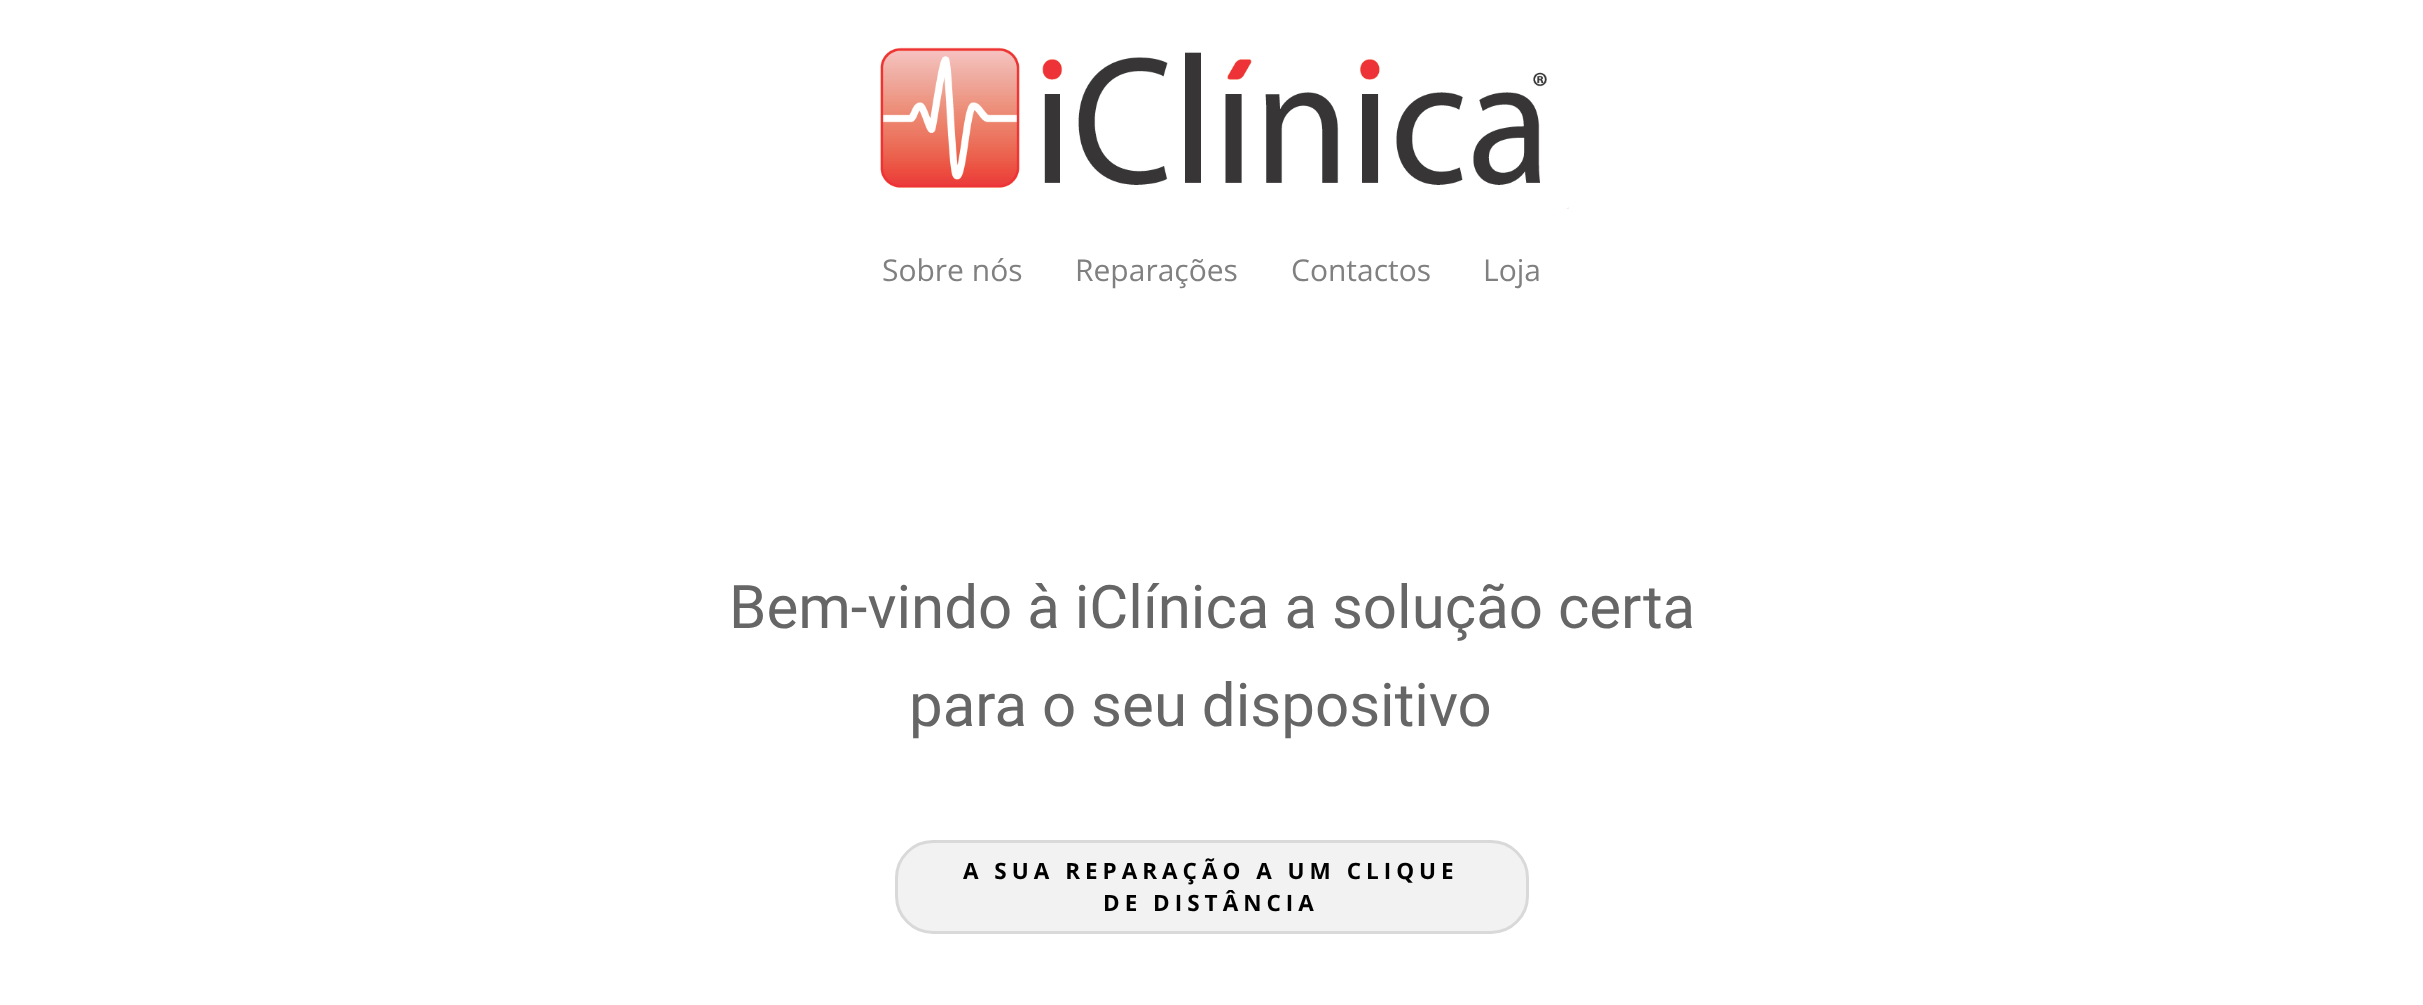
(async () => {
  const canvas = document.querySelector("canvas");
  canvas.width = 2423;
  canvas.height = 1005;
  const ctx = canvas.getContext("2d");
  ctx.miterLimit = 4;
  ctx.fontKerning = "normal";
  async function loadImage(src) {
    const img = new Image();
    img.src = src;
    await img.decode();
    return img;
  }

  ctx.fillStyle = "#ffffff";
  ctx.fillRect(0, 0, 2423, 1005);
  ctx.drawImage(await loadImage("img/1.png"), 880, 47, 689, 162);
  ctx.fillStyle = "#f2f2f2";
  ctx.beginPath();
  ctx.roundRect(896.5, 841.5, 631, 91, 36.5);
  ctx.fill();
  ctx.strokeStyle = "#d9d9d9";
  ctx.lineWidth = 3;
  ctx.stroke();
  ctx.font = "30px Open Sans";
  ctx.fillStyle = "#808080";
  for (const [text, x, y] of [
    ["Sobre nós", 882, 281],
    ["Reparações", 1075, 281],
    ["Contactos", 1291, 281],
    ["Loja", 1483, 281],
  ]) {
    ctx.fillText(text, x, y);
  }
  ctx.font = "60px Roboto";
  ctx.fillStyle = "#666666";
  ctx.fillText("Bem-vindo à iClínica a solução certa", 729, 628);
  ctx.fillText("para o seu dispositivo", 909, 726);
  ctx.letterSpacing = "5px";
  ctx.font = "bold 22.5px Open Sans";
  ctx.fillStyle = "#000000";
  ctx.fillText("A SUA REPARAÇÃO A UM CLIQUE", 963, 879);
  ctx.fillText("DE DISTÂNCIA", 1103, 911);
})();
